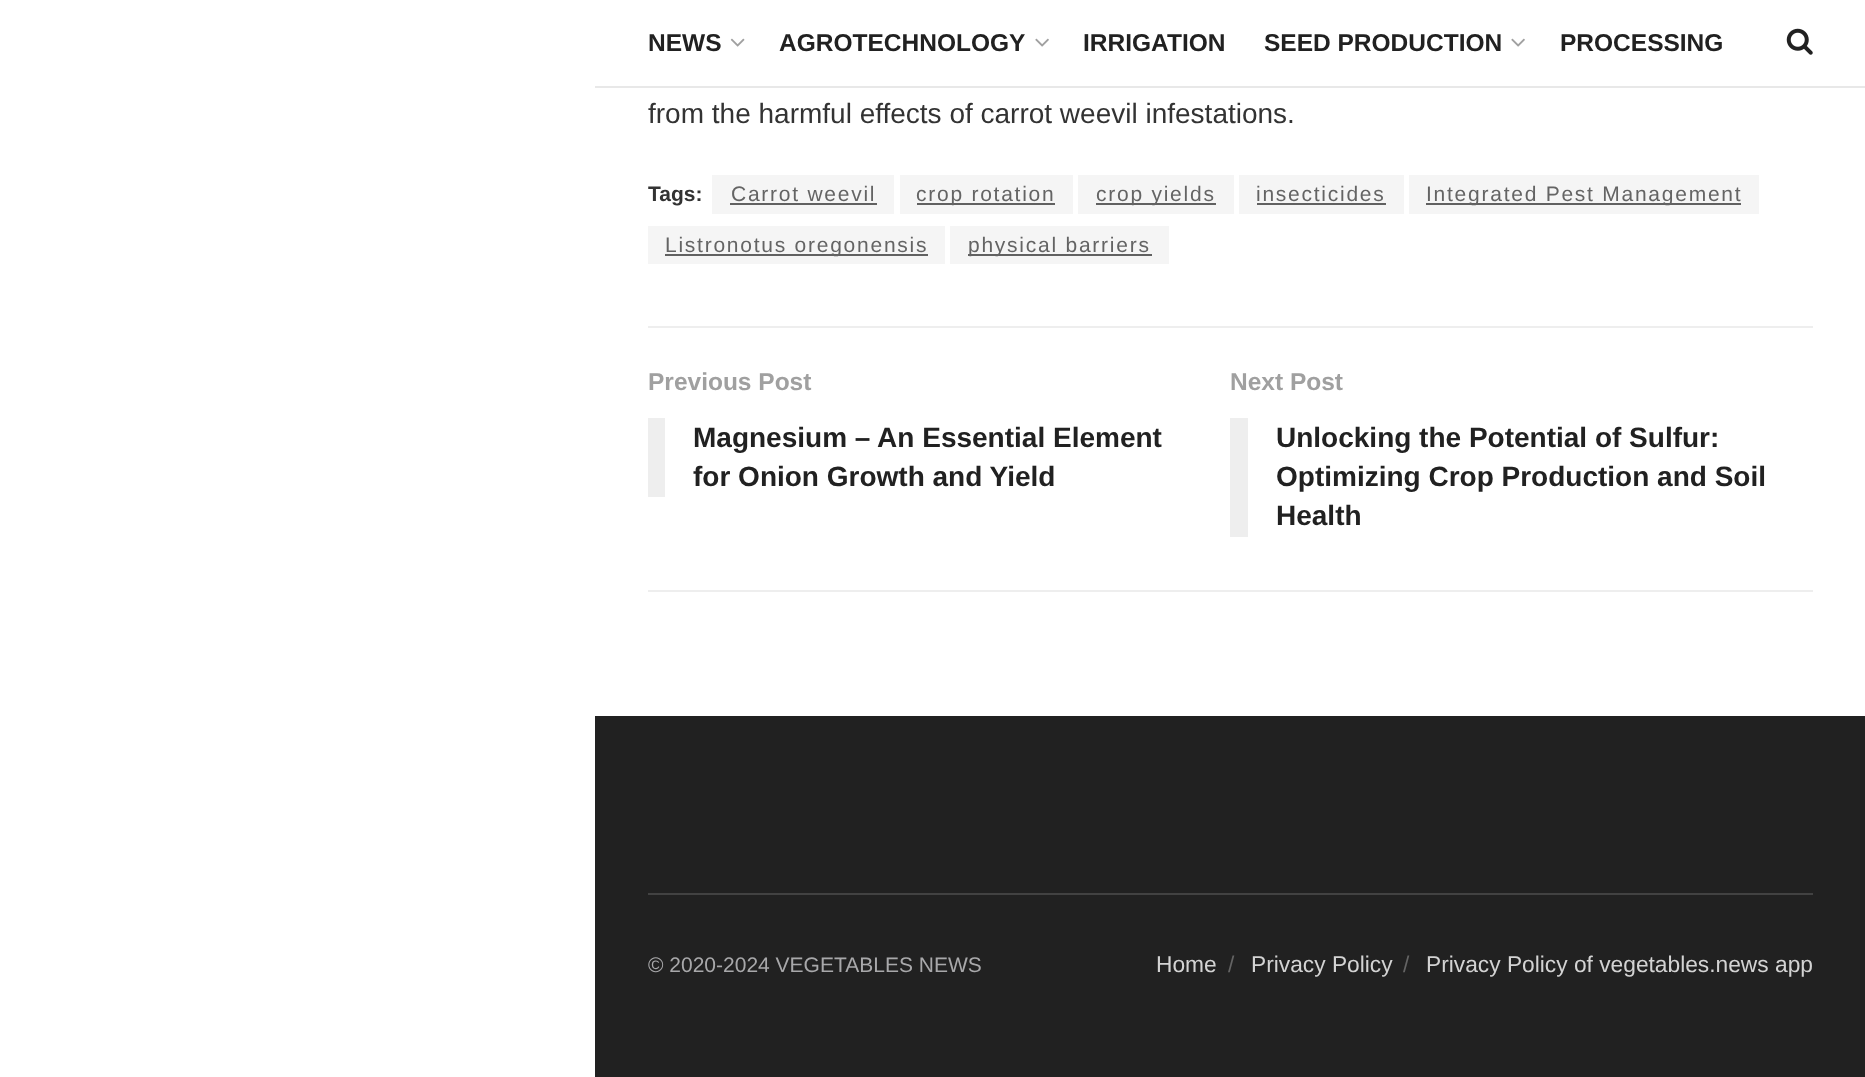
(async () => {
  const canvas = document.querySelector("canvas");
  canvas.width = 1865;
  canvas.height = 1077;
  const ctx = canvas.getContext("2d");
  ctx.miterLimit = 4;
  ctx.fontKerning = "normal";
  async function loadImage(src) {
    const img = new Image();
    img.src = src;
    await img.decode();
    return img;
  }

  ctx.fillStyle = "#ffffff";
  ctx.fillRect(0, 0, 1865, 1077);
  ctx.fillStyle = "#e8e8e8";
  ctx.fillRect(595, 86, 1270, 2);
  ctx.drawImage(await loadImage("img/1.png"), 730, 38, 15, 9);
  ctx.drawImage(await loadImage("img/2.png"), 1035, 38, 14, 9);
  ctx.drawImage(await loadImage("img/2.png"), 1511, 38, 14, 9);
  ctx.drawImage(await loadImage("img/3.png"), 1786, 28, 27, 27);
  for (const [x, y, w, h, color] of [
    [712, 175, 182, 39, "#f5f5f5"],
    [730, 203, 147, 2, "#616161"],
    [900, 175, 173, 39, "#f5f5f5"],
    [917, 203, 138, 2, "#616161"],
    [1078, 175, 156, 39, "#f5f5f5"],
    [1096, 203, 120, 2, "#616161"],
    [1239, 175, 165, 39, "#f5f5f5"],
    [1257, 203, 129, 2, "#616161"],
    [1409, 175, 350, 39, "#f5f5f5"],
    [1426, 203, 315, 2, "#616161"],
    [648, 226, 297, 38, "#f5f5f5"],
    [665, 254, 263, 2, "#616161"],
    [950, 226, 219, 38, "#f5f5f5"],
    [968, 254, 184, 2, "#616161"],
    [648, 326, 1165, 2, "#eeeeee"],
    [648, 590, 1165, 2, "#eeeeee"],
    [648, 418, 17, 79, "#eeeeee"],
    [1230, 418, 18, 119, "#eeeeee"],
    [595, 716, 1270, 361, "#212121"],
    [648, 893, 1165, 2, "#424242"],
  ]) {
    ctx.fillStyle = color;
    ctx.fillRect(x, y, w, h);
  }
  ctx.font = "bold 24.5px Liberation Sans";
  ctx.fillStyle = "#212121";
  for (const [text, x, y] of [
    ["NEWS", 648, 51],
    ["AGROTECHNOLOGY", 779, 51],
    ["IRRIGATION", 1083, 51],
    ["SEED PRODUCTION", 1264, 51],
    ["PROCESSING", 1560, 51],
  ]) {
    ctx.fillText(text, x, y);
  }
  ctx.font = "28px Liberation Sans";
  ctx.fillStyle = "#333333";
  ctx.fillText("from the harmful effects of carrot weevil infestations.", 648, 123);
  ctx.font = "bold 21px Liberation Sans";
  ctx.fillText("Tags:", 648, 201);
  ctx.letterSpacing = "1.75px";
  ctx.font = "21px Liberation Sans";
  ctx.fillStyle = "#646464";
  for (const [text, x, y] of [
    ["Carrot weevil", 731, 201],
    ["crop rotation", 916, 201],
    ["crop yields", 1096, 201],
    ["insecticides", 1256, 201],
    ["Integrated Pest Management", 1426, 201],
    ["Listronotus oregonensis", 665, 252],
    ["physical barriers", 968, 252],
  ]) {
    ctx.fillText(text, x, y);
  }
  ctx.letterSpacing = "0px";
  ctx.font = "bold 24.5px Liberation Sans";
  ctx.fillStyle = "#a0a0a0";
  ctx.fillText("Previous Post", 648, 390);
  ctx.font = "bold 28px Liberation Sans";
  ctx.fillStyle = "#212121";
  ctx.fillText("Magnesium – An Essential Element", 693, 447);
  ctx.fillText("for Onion Growth and Yield", 693, 486);
  ctx.font = "bold 24.5px Liberation Sans";
  ctx.fillStyle = "#a0a0a0";
  ctx.fillText("Next Post", 1230, 390);
  ctx.font = "bold 28px Liberation Sans";
  ctx.fillStyle = "#212121";
  for (const [text, x, y] of [
    ["Unlocking the Potential of Sulfur:", 1276, 447],
    ["Optimizing Crop Production and Soil", 1276, 486],
    ["Health", 1276, 525],
  ]) {
    ctx.fillText(text, x, y);
  }
  ctx.font = "21px Liberation Sans";
  ctx.fillStyle = "#a8a8aa";
  ctx.fillText("© 2020-2024 VEGETABLES NEWS", 648, 972);
  ctx.font = "22.75px Liberation Sans";
  ctx.fillStyle = "#d3d3d3";
  ctx.fillText("Home", 1156, 972);
  ctx.fillStyle = "#646464";
  ctx.fillText("/", 1228, 972);
  ctx.fillStyle = "#d3d3d3";
  ctx.fillText("Privacy Policy", 1251, 972);
  ctx.fillStyle = "#646464";
  ctx.fillText("/", 1403, 972);
  ctx.fillStyle = "#d3d3d3";
  ctx.fillText("Privacy Policy of vegetables.news app", 1426, 972);
})();
